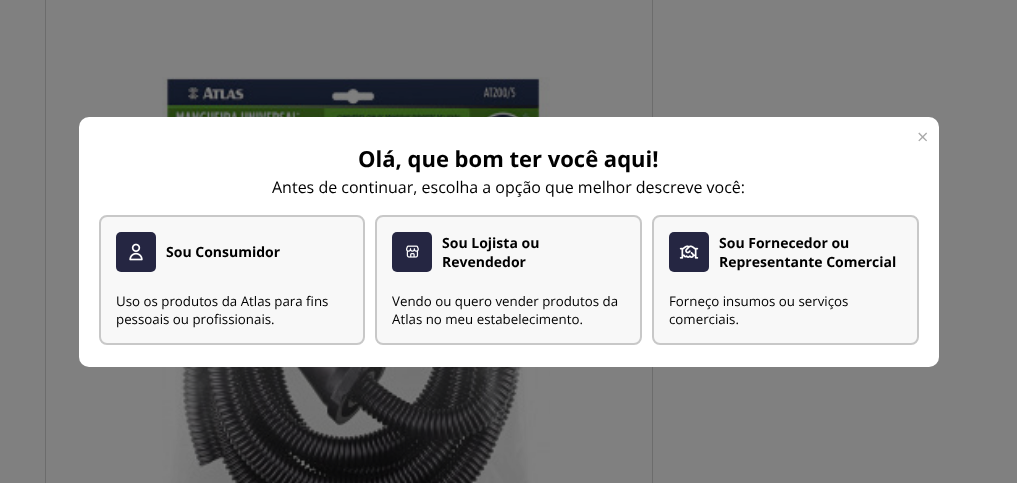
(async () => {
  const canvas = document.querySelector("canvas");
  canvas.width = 1017;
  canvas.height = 483;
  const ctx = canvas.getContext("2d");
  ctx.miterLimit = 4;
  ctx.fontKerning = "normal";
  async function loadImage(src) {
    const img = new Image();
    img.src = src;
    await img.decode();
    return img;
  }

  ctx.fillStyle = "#808080";
  ctx.fillRect(0, 0, 1017, 483);
  ctx.strokeStyle = "#6c6c6c";
  ctx.strokeRect(45.5, -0.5, 607, 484);
  ctx.drawImage(await loadImage("img/1.png"), 162, 77, 388, 406);
  ctx.fillStyle = "#ffffff";
  ctx.beginPath();
  ctx.roundRect(79, 117, 860, 250, 10);
  ctx.fill();
  ctx.fillStyle = "#f8f8f8";
  ctx.beginPath();
  ctx.roundRect(100, 216, 264, 128, 7);
  ctx.fill();
  ctx.strokeStyle = "#c8c8c8";
  ctx.lineWidth = 2;
  ctx.stroke();
  ctx.fillStyle = "#252642";
  ctx.beginPath();
  ctx.roundRect(116, 232, 40, 40, 5);
  ctx.fill();
  ctx.drawImage(await loadImage("img/2.png"), 129, 243, 14, 18);
  ctx.fillStyle = "#f8f8f8";
  ctx.beginPath();
  ctx.roundRect(376, 216, 265, 128, 7);
  ctx.fill();
  ctx.stroke();
  ctx.fillStyle = "#252642";
  ctx.beginPath();
  ctx.roundRect(392, 232, 40, 40, 5);
  ctx.fill();
  ctx.drawImage(await loadImage("img/3.png"), 406, 245, 13, 13);
  ctx.fillStyle = "#f8f8f8";
  ctx.beginPath();
  ctx.roundRect(653, 216, 265, 128, 7);
  ctx.fill();
  ctx.stroke();
  ctx.fillStyle = "#252642";
  ctx.beginPath();
  ctx.roundRect(669, 232, 40, 40, 5);
  ctx.fill();
  ctx.drawImage(await loadImage("img/4.png"), 679, 245, 20, 14);
  ctx.font = "20px Open Sans";
  ctx.fillStyle = "#aaaaaa";
  ctx.fillText("×", 917, 144);
  ctx.font = "bold 22px Open Sans";
  ctx.fillStyle = "#000000";
  ctx.fillText("Olá, que bom ter você aqui!", 358, 167);
  ctx.font = "16px Open Sans";
  ctx.fillText("Antes de continuar, escolha a opção que melhor descreve você:", 272, 193);
  ctx.font = "bold 14px Open Sans";
  ctx.fillText("Sou Consumidor", 166, 257);
  ctx.font = "13.3px Open Sans";
  ctx.fillText("Uso os produtos da Atlas para fins", 116, 306);
  ctx.fillText("pessoais ou profissionais.", 116, 324);
  ctx.font = "bold 14px Open Sans";
  ctx.fillText("Sou Lojista ou", 442, 248);
  ctx.fillText("Revendedor", 442, 267);
  ctx.font = "13.3px Open Sans";
  ctx.fillText("Vendo ou quero vender produtos da", 392, 306);
  ctx.fillText("Atlas no meu estabelecimento.", 392, 324);
  ctx.font = "bold 14px Open Sans";
  ctx.fillText("Sou Fornecedor ou", 719, 248);
  ctx.fillText("Representante Comercial", 719, 267);
  ctx.font = "13.3px Open Sans";
  ctx.fillText("Forneço insumos ou serviços", 669, 306);
  ctx.fillText("comerciais.", 669, 324);
})();
